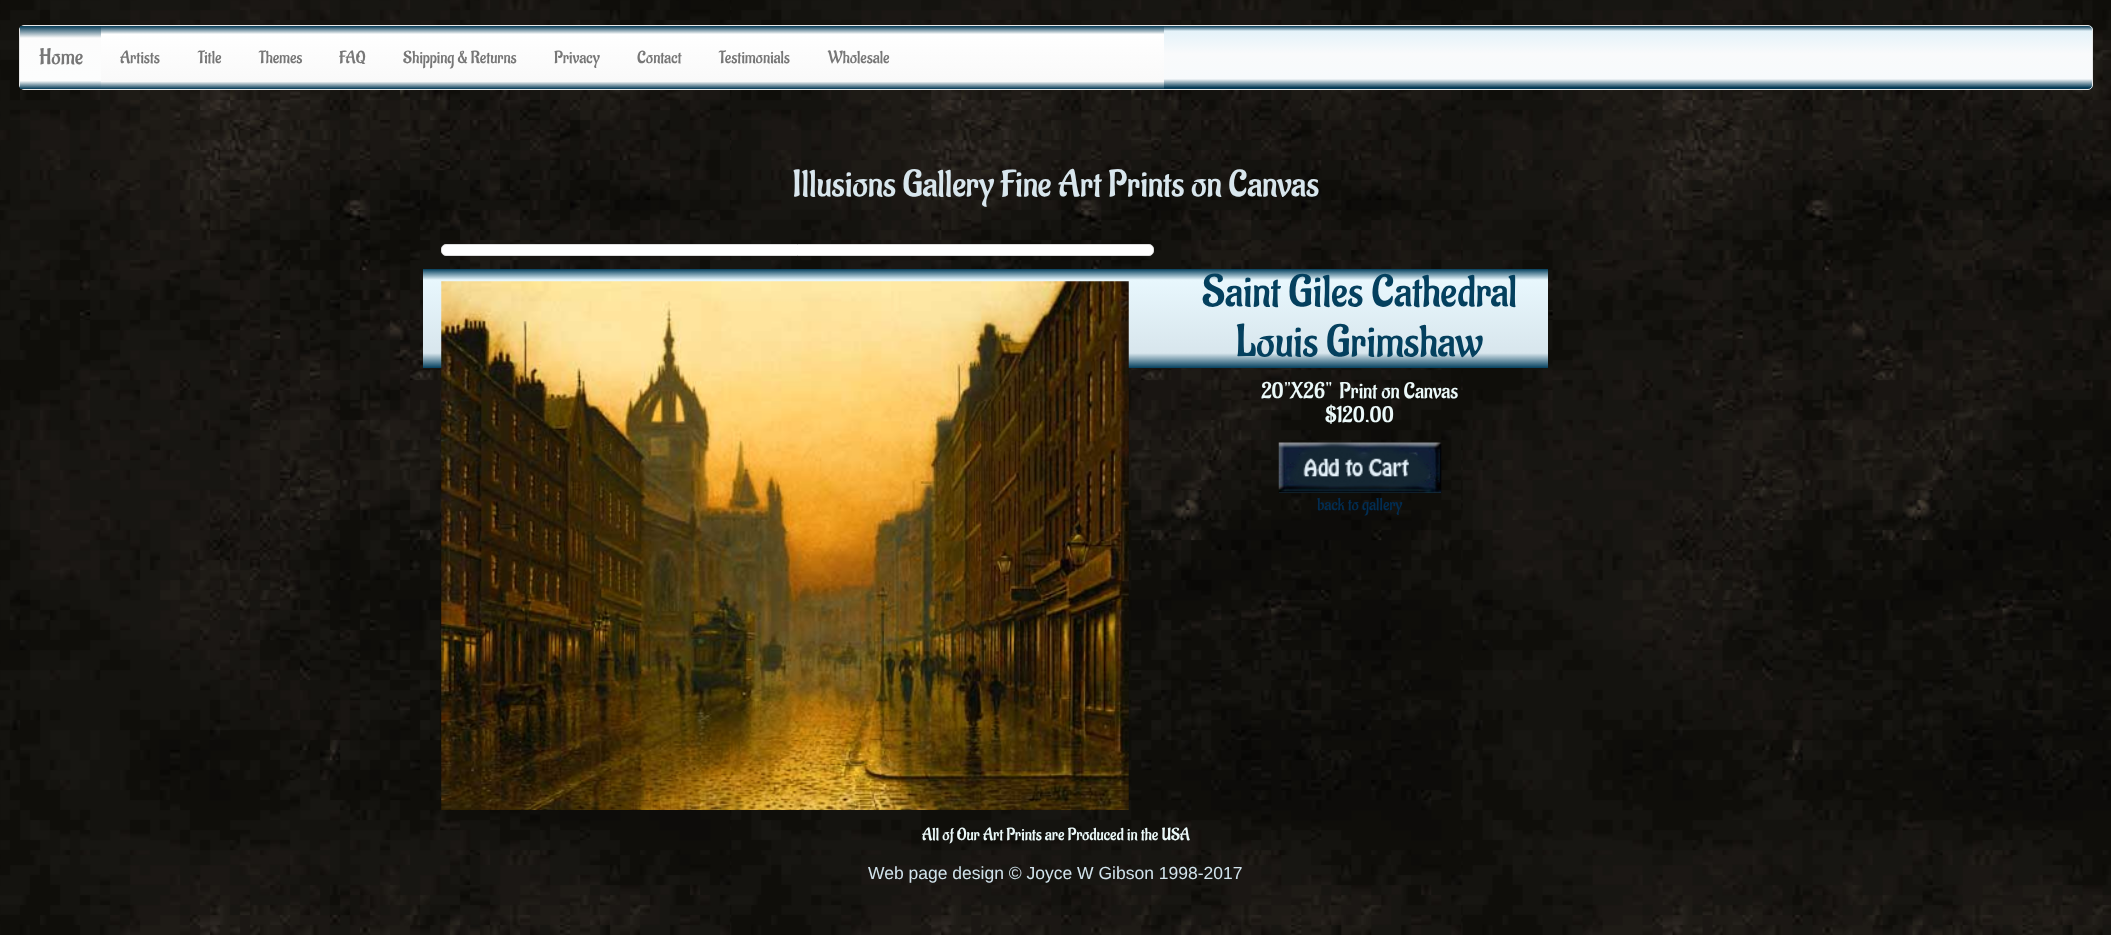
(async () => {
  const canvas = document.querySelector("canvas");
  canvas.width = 2111;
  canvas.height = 935;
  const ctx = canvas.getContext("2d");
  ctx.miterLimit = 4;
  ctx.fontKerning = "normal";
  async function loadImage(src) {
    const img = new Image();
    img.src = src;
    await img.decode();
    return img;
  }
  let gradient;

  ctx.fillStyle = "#ffffff";
  ctx.fillRect(0, 0, 2111, 935);
  ctx.drawImage(await loadImage("img/1.png"), 0, 0, 2111, 935);
  ctx.save();
  ctx.beginPath();
  ctx.roundRect(19, 25, 2074, 65, 5);
  ctx.clip();
  gradient = ctx.createLinearGradient(1056, 26, 1056, 89);
  gradient.addColorStop(0, "#023955");
  gradient.addColorStop(0.08, "#e4f2f9");
  gradient.addColorStop(0.44, "#f9fafb");
  gradient.addColorStop(0.84, "#f7fafc");
  gradient.addColorStop(0.98, "#023955");
  ctx.fillStyle = gradient;
  ctx.fillRect(19, 26, 2074, 63);
  ctx.restore();
  ctx.beginPath();
  ctx.roundRect(19.5, 25.5, 2073, 64, 4.5);
  ctx.strokeStyle = "#e7e7e7";
  ctx.stroke();
  gradient = ctx.createLinearGradient(61, 26, 61, 89);
  gradient.addColorStop(0, "#023955");
  gradient.addColorStop(0.19, "#fcfcfc");
  gradient.addColorStop(0.87, "#fcfdfd");
  gradient.addColorStop(1, "#023955");
  ctx.fillStyle = gradient;
  ctx.fillRect(20, 26, 81, 63);
  gradient = ctx.createLinearGradient(601, 26, 601, 89);
  gradient.addColorStop(0, "#023955");
  gradient.addColorStop(0.13, "#ffffff");
  gradient.addColorStop(0.88, "#f9f9f9");
  gradient.addColorStop(1, "#023955");
  ctx.fillStyle = gradient;
  ctx.fillRect(101, 26, 1063, 63);
  ctx.fillStyle = "#ffffff";
  ctx.beginPath();
  ctx.roundRect(441.5, 244.5, 712, 11, 4.5);
  ctx.fill();
  ctx.strokeStyle = "#dddddd";
  ctx.stroke();
  gradient = ctx.createLinearGradient(985, 269, 985, 368);
  gradient.addColorStop(0, "#04405e");
  gradient.addColorStop(0.11, "#e8f7fd");
  gradient.addColorStop(0.85, "#d8e6ed");
  gradient.addColorStop(1, "#04405e");
  ctx.fillStyle = gradient;
  ctx.fillRect(423, 269, 1125, 99);
  ctx.drawImage(await loadImage("img/2.png"), 441, 281, 688, 529);
  ctx.fillStyle = "#1f3d4b";
  ctx.fillRect(1279, 492, 162, 1);
  ctx.drawImage(await loadImage("img/3.png"), 1278, 442, 164, 51);
  ctx.font = "22.5px Aladin";
  ctx.fillStyle = "#777777";
  ctx.fillText("Home", 39, 64);
  ctx.font = "17.5px Aladin";
  for (const [text, x, y] of [
    ["Artists", 120, 63],
    ["Title", 198, 63],
    ["Themes", 259, 63],
    ["FAQ", 339, 63],
    ["Shipping & Returns", 403, 63],
    ["Privacy", 554, 63],
    ["Contact", 637, 63],
    ["Testimonials", 719, 63],
    ["Wholesale", 828, 63],
  ]) {
    ctx.fillText(text, x, y);
  }
  ctx.font = "37.5px Aladin";
  ctx.fillStyle = "#d8e6ed";
  ctx.fillText("Illusions Gallery Fine Art Prints on Canvas", 792, 196);
  ctx.font = "45px Aladin";
  ctx.fillStyle = "#04405e";
  ctx.fillText("Saint Giles Cathedral", 1202, 306);
  ctx.fillText("Louis Grimshaw", 1236, 356);
  ctx.font = "22.5px Aladin";
  ctx.fillStyle = "#ebf9f9";
  ctx.fillText("20\"X26\"  Print on Canvas", 1261, 398);
  ctx.fillText("$120.00", 1325, 422);
  ctx.font = "17.5px Aladin";
  ctx.fillStyle = "#022d52";
  ctx.fillText("back to gallery", 1317, 510);
  ctx.fillStyle = "#ebf9f9";
  ctx.fillText("All of Our Art Prints are Produced in the USA", 922, 840);
  ctx.font = "17.5px Liberation Sans";
  ctx.fillStyle = "#d1e3ec";
  ctx.fillText("Web page design © Joyce W Gibson 1998-2017", 868, 879);
})();
